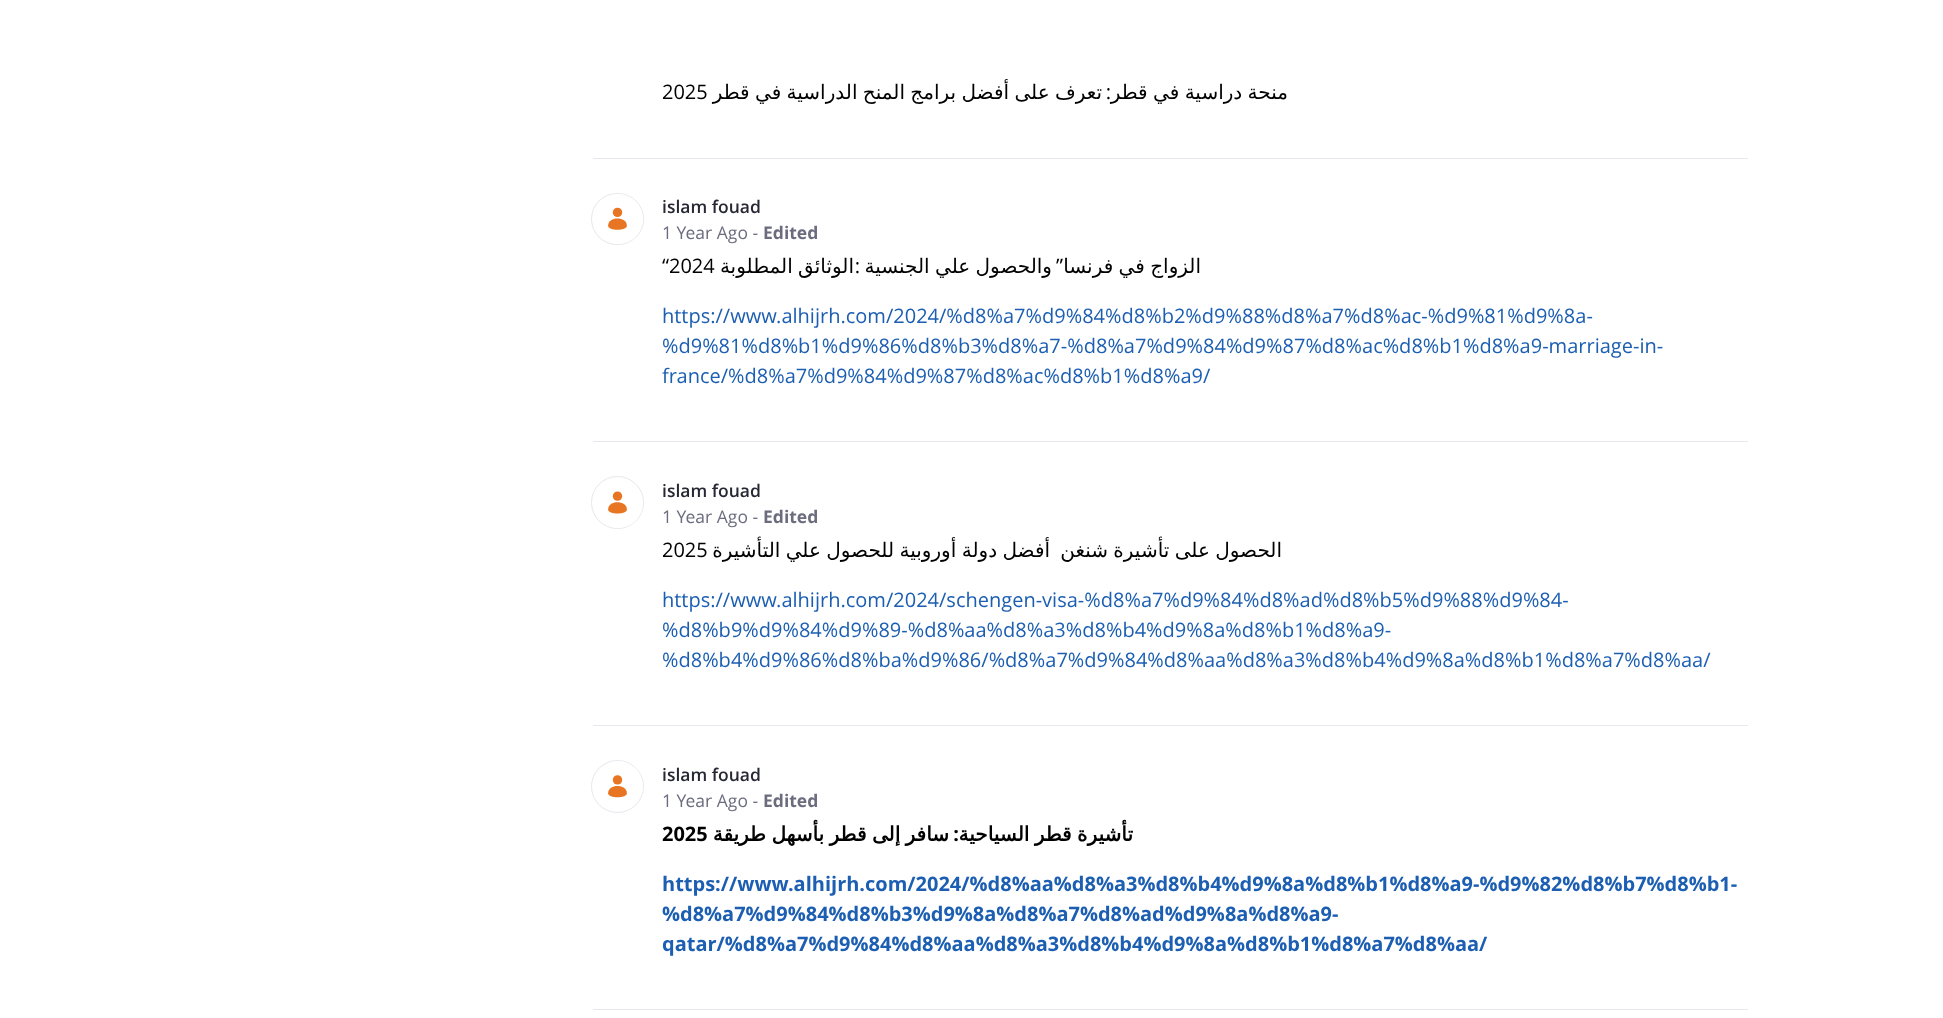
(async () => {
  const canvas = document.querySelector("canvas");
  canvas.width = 1943;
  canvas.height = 1018;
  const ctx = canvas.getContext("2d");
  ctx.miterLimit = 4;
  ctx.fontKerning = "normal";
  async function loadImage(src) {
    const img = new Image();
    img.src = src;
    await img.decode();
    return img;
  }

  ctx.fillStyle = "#ffffff";
  ctx.fillRect(0, 0, 1943, 1018);
  ctx.fillStyle = "#e7e7ed";
  ctx.fillRect(593, 158, 1155, 1);
  ctx.fillRect(593, 441, 1155, 1);
  ctx.beginPath();
  ctx.roundRect(591.5, 193.5, 52, 51, 25.5);
  ctx.strokeStyle = "#e7e7ed";
  ctx.stroke();
  ctx.fillStyle = "#ffffff";
  ctx.beginPath();
  ctx.arc(618, 219, 25, 0, Math.PI * 2);
  ctx.fill();
  ctx.drawImage(await loadImage("img/1.png"), 608, 207, 19, 23);
  ctx.fillStyle = "#e7e7ed";
  ctx.fillRect(593, 725, 1155, 1);
  ctx.beginPath();
  ctx.arc(617.5, 502.5, 26, 0, Math.PI * 2);
  ctx.stroke();
  ctx.fillStyle = "#ffffff";
  ctx.beginPath();
  ctx.arc(618, 503, 25, 0, Math.PI * 2);
  ctx.fill();
  ctx.drawImage(await loadImage("img/2.png"), 608, 491, 19, 23);
  ctx.fillStyle = "#e7e7ed";
  ctx.fillRect(593, 1009, 1155, 1);
  ctx.beginPath();
  ctx.arc(617.5, 786.5, 26, 0, Math.PI * 2);
  ctx.stroke();
  ctx.fillStyle = "#ffffff";
  ctx.beginPath();
  ctx.arc(618, 786, 25, 0, Math.PI * 2);
  ctx.fill();
  ctx.drawImage(await loadImage("img/3.png"), 608, 775, 19, 23);
  ctx.font = "20px Open Sans";
  ctx.fillStyle = "#000000";
  ctx.fillText("2025", 662, 99);
  ctx.wordSpacing = "-1px";
  ctx.direction = "rtl";
  ctx.font = "20px DejaVu Sans";
  ctx.fillText("تعرف على أفضل برامج المنح الدراسية في قطر", 1102, 99);
  ctx.fillText("منحة دراسية في قطر", 1288, 99);
  ctx.wordSpacing = "0px";
  ctx.font = "20px Open Sans";
  ctx.fillText(":", 1111, 99);
  ctx.direction = "ltr";
  ctx.font = "600 17.5px Open Sans";
  ctx.fillStyle = "#272833";
  ctx.fillText("islam fouad", 662, 213);
  ctx.font = "17.5px Open Sans";
  ctx.fillStyle = "#6b6c7e";
  ctx.fillText("1 Year Ago -", 662, 239);
  ctx.font = "bold 17.5px Open Sans";
  ctx.fillText("Edited", 763, 239);
  ctx.font = "20px Open Sans";
  ctx.fillStyle = "#000000";
  ctx.fillText("“2024", 662, 273);
  ctx.wordSpacing = "-1px";
  ctx.direction = "rtl";
  ctx.font = "20px DejaVu Sans";
  ctx.fillText("الوثائق المطلوبة", 854, 273);
  ctx.fillText("والحصول علي الجنسية", 1052, 273);
  ctx.wordSpacing = "0px";
  ctx.font = "20px Open Sans";
  ctx.fillText("”", 1063, 273);
  ctx.wordSpacing = "-1px";
  ctx.font = "20px DejaVu Sans";
  ctx.fillText("الزواج في فرنسا", 1201, 273);
  ctx.wordSpacing = "0px";
  ctx.font = "20px Open Sans";
  ctx.fillText(":", 860, 273);
  ctx.direction = "ltr";
  ctx.fillStyle = "#1b5eb2";
  for (const [text, x, y] of [
    ["https://www.alhijrh.com/2024/%d8%a7%d9%84%d8%b2%d9%88%d8%a7%d8%ac-%d9%81%d9%8a-", 662, 323],
    ["%d9%81%d8%b1%d9%86%d8%b3%d8%a7-%d8%a7%d9%84%d9%87%d8%ac%d8%b1%d8%a9-marriage-in-", 662, 353],
    ["france/%d8%a7%d9%84%d9%87%d8%ac%d8%b1%d8%a9/", 662, 383],
  ]) {
    ctx.fillText(text, x, y);
  }
  ctx.font = "600 17.5px Open Sans";
  ctx.fillStyle = "#272833";
  ctx.fillText("islam fouad", 662, 497);
  ctx.font = "17.5px Open Sans";
  ctx.fillStyle = "#6b6c7e";
  ctx.fillText("1 Year Ago -", 662, 523);
  ctx.font = "bold 17.5px Open Sans";
  ctx.fillText("Edited", 763, 523);
  ctx.font = "20px Open Sans";
  ctx.fillStyle = "#000000";
  ctx.fillText("2025", 662, 557);
  ctx.wordSpacing = "-1px";
  ctx.direction = "rtl";
  ctx.font = "20px DejaVu Sans";
  ctx.fillText("أفضل دولة أوروبية للحصول علي التأشيرة", 1050, 557);
  ctx.fillText("الحصول على تأشيرة شنغن", 1282, 557);
  ctx.wordSpacing = "0px";
  ctx.direction = "ltr";
  ctx.font = "20px Open Sans";
  ctx.fillStyle = "#1b5eb2";
  for (const [text, x, y] of [
    ["https://www.alhijrh.com/2024/schengen-visa-%d8%a7%d9%84%d8%ad%d8%b5%d9%88%d9%84-", 662, 607],
    ["%d8%b9%d9%84%d9%89-%d8%aa%d8%a3%d8%b4%d9%8a%d8%b1%d8%a9-", 662, 637],
    ["%d8%b4%d9%86%d8%ba%d9%86/%d8%a7%d9%84%d8%aa%d8%a3%d8%b4%d9%8a%d8%b1%d8%a7%d8%aa/", 662, 667],
  ]) {
    ctx.fillText(text, x, y);
  }
  ctx.font = "600 17.5px Open Sans";
  ctx.fillStyle = "#272833";
  ctx.fillText("islam fouad", 662, 781);
  ctx.font = "17.5px Open Sans";
  ctx.fillStyle = "#6b6c7e";
  ctx.fillText("1 Year Ago -", 662, 807);
  ctx.font = "bold 17.5px Open Sans";
  ctx.fillText("Edited", 763, 807);
  ctx.font = "bold 20px Open Sans";
  ctx.fillStyle = "#000000";
  ctx.fillText("2025", 662, 841);
  ctx.wordSpacing = "-1px";
  ctx.direction = "rtl";
  ctx.font = "bold 20px DejaVu Sans";
  ctx.fillText("سافر إلى قطر بأسهل طريقة", 949, 841);
  ctx.wordSpacing = "0px";
  ctx.font = "bold 20px Open Sans";
  ctx.fillText(":", 959, 841);
  ctx.wordSpacing = "-1px";
  ctx.font = "bold 20px DejaVu Sans";
  ctx.fillText("تأشيرة قطر السياحية", 1133, 841);
  ctx.wordSpacing = "0px";
  ctx.direction = "ltr";
  ctx.font = "bold 20px Open Sans";
  ctx.fillStyle = "#1b5eb2";
  for (const [text, x, y] of [
    ["https://www.alhijrh.com/2024/%d8%aa%d8%a3%d8%b4%d9%8a%d8%b1%d8%a9-%d9%82%d8%b7%d8%b1-", 662, 891],
    ["%d8%a7%d9%84%d8%b3%d9%8a%d8%a7%d8%ad%d9%8a%d8%a9-", 662, 921],
    ["qatar/%d8%a7%d9%84%d8%aa%d8%a3%d8%b4%d9%8a%d8%b1%d8%a7%d8%aa/", 662, 951],
  ]) {
    ctx.fillText(text, x, y);
  }
})();
